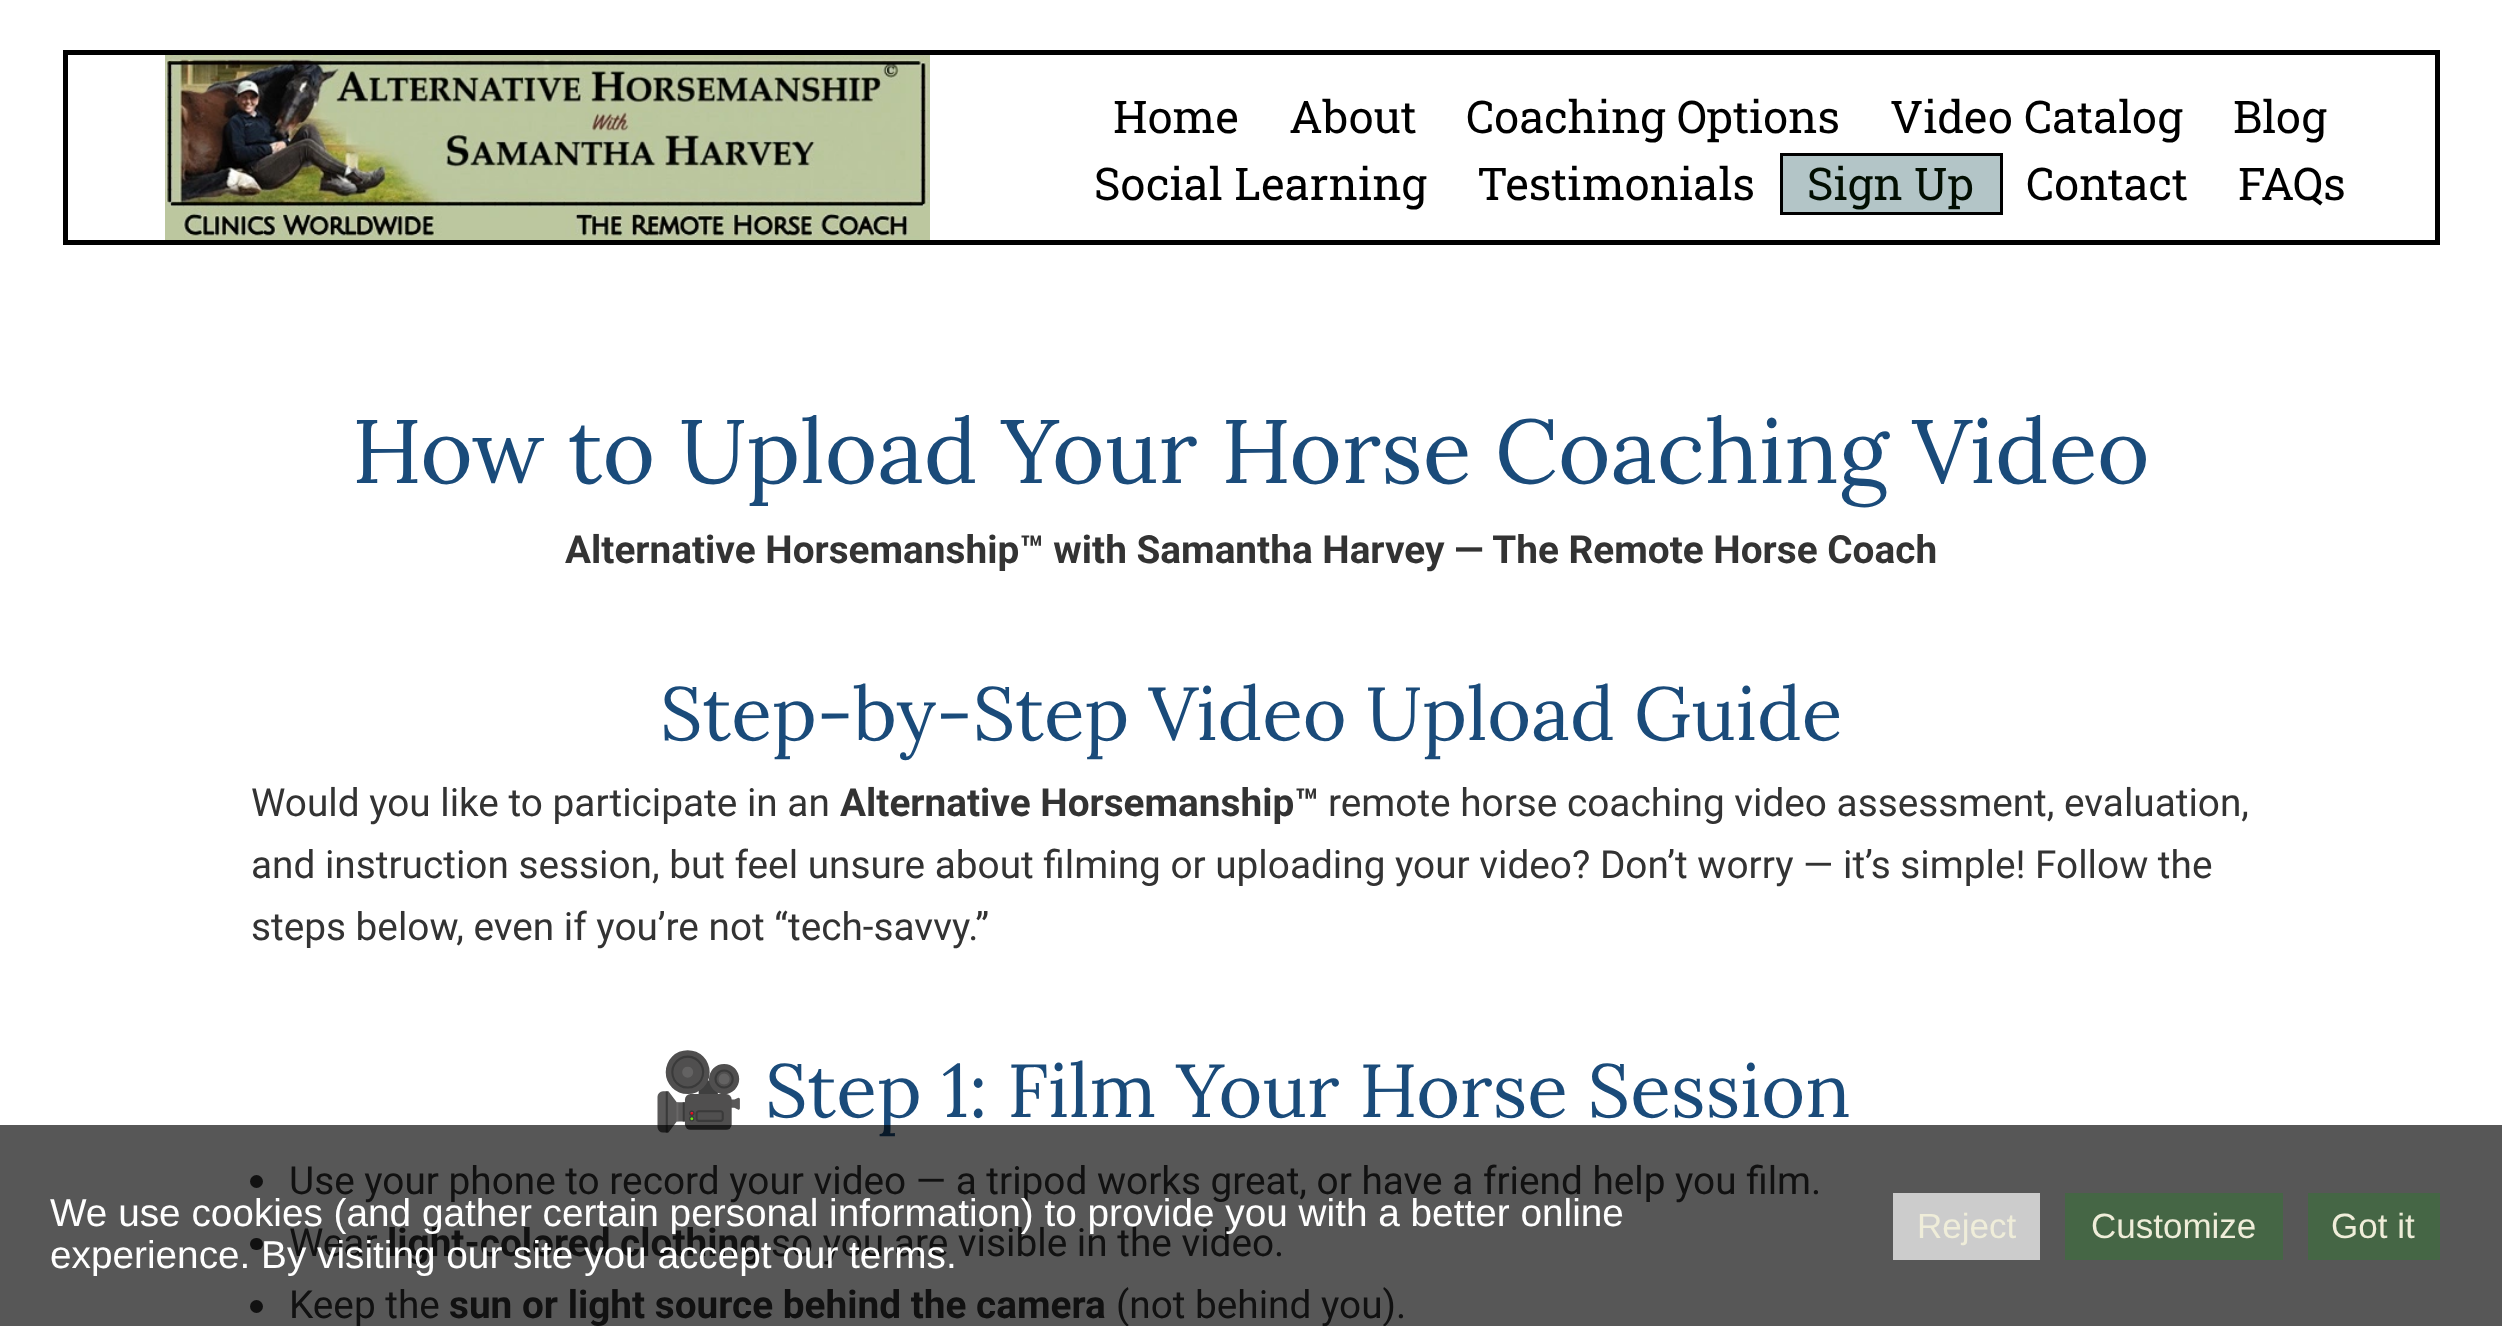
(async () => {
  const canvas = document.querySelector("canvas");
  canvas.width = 2502;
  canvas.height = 1326;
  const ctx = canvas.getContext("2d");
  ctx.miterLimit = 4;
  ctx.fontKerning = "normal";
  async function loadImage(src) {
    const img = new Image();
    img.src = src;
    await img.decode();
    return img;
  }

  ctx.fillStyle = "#ffffff";
  ctx.fillRect(0, 0, 2502, 1326);
  ctx.strokeStyle = "#000000";
  ctx.lineWidth = 5;
  ctx.strokeRect(65.5, 52.5, 2372, 190);
  ctx.drawImage(await loadImage("img/1.png"), 165, 55, 765, 185);
  ctx.fillStyle = "#b3c5c7";
  ctx.beginPath();
  ctx.rect(1781.5, 154.5, 220, 59);
  ctx.fill();
  ctx.lineWidth = 3;
  ctx.stroke();
  ctx.fillStyle = "#333333";
  ctx.beginPath();
  ctx.arc(256.5, 1181.5, 6.5, 0, Math.PI * 2);
  ctx.fill();
  ctx.beginPath();
  ctx.roundRect(250, 1238, 13, 12, 6);
  ctx.fill();
  ctx.beginPath();
  ctx.arc(256.5, 1306.5, 6.5, 0, Math.PI * 2);
  ctx.fill();
  ctx.font = "45px Roboto Slab";
  ctx.fillStyle = "#000000";
  for (const [text, x, y] of [
    ["Home", 1113, 133],
    ["About", 1289, 133],
    ["Coaching Options", 1466, 133],
    ["Video Catalog", 1890, 133],
    ["Blog", 2233, 133],
    ["Social Learning", 1094, 200],
    ["Testimonials", 1477, 200],
  ]) {
    ctx.fillText(text, x, y);
  }
  ctx.fillStyle = "#020e01";
  ctx.fillText("Sign Up", 1807, 200);
  ctx.fillStyle = "#000000";
  ctx.fillText("Contact", 2026, 200);
  ctx.fillText("FAQs", 2238, 200);
  ctx.font = "90px Lora";
  ctx.fillStyle = "#1a4b7a";
  ctx.fillText("How to Upload Your Horse Coaching Video", 352, 483);
  ctx.font = "bold 38.75px Roboto";
  ctx.fillStyle = "#333333";
  ctx.fillText("Alternative Horsemanship™ with Samantha Harvey — The Remote Horse Coach", 565, 563);
  ctx.wordSpacing = "-0.5px";
  ctx.font = "75px Lora";
  ctx.fillStyle = "#1a4b7a";
  ctx.fillText("Step-by-Step Video Upload Guide", 660, 740);
  ctx.wordSpacing = "0px";
  ctx.font = "38.75px Roboto";
  ctx.fillStyle = "#333333";
  ctx.fillText("Would you like to participate in an", 251, 816);
  ctx.font = "bold 38.75px Roboto";
  ctx.fillText("Alternative Horsemanship™", 840, 816);
  ctx.font = "38.75px Roboto";
  for (const [text, x, y] of [
    ["remote horse coaching video assessment, evaluation,", 1328, 816],
    ["and instruction session, but feel unsure about filming or uploading your video? Don’t worry — it’s simple! Follow the", 251, 878],
    ["steps below, even if you’re not “tech-savvy.”", 251, 940],
  ]) {
    ctx.fillText(text, x, y);
  }
  ctx.font = "75px Noto Color Emoji";
  ctx.fillStyle = "#1a4b7a";
  ctx.fillText("🎥", 652, 1117);
  ctx.font = "75px Lora";
  ctx.fillText("Step 1: Film Your Horse Session", 765, 1117);
  ctx.font = "38.75px Roboto";
  ctx.fillStyle = "#333333";
  ctx.fillText("Use your phone to record your video — a tripod works great, or have a friend help you film.", 289, 1194);
  ctx.fillText("Wear", 289, 1256);
  ctx.font = "bold 38.75px Roboto";
  ctx.fillText("light-colored clothing", 387, 1256);
  ctx.font = "38.75px Roboto";
  ctx.fillText("so you are visible in the video.", 771, 1256);
  ctx.fillText("Keep the", 289, 1318);
  ctx.font = "bold 38.75px Roboto";
  ctx.fillText("sun or light source behind the camera", 449, 1318);
  ctx.font = "38.75px Roboto";
  ctx.fillText("(not behind you).", 1116, 1318);
  ctx.fillStyle = "rgba(0, 0, 0, 0.66)";
  ctx.fillRect(0, 1125, 2502, 201);
  ctx.font = "38.75px Liberation Sans";
  ctx.fillStyle = "#ffffff";
  ctx.fillText("We use cookies (and gather certain personal information) to provide you with a better online", 50, 1226);
  ctx.fillText("experience. By visiting our site you accept our terms.", 50, 1268);
  ctx.fillStyle = "#cccccc";
  ctx.fillRect(1893, 1193, 147, 67);
  ctx.font = "35px Liberation Sans";
  ctx.fillStyle = "#efedd9";
  ctx.fillText("Reject", 1917, 1238);
  ctx.fillStyle = "#456645";
  ctx.fillRect(2065, 1193, 218, 67);
  ctx.fillStyle = "#efedd9";
  ctx.fillText("Customize", 2091, 1238);
  ctx.fillStyle = "#456645";
  ctx.fillRect(2308, 1193, 132, 67);
  ctx.fillStyle = "#efedd9";
  ctx.fillText("Got it", 2331, 1238);
})();
